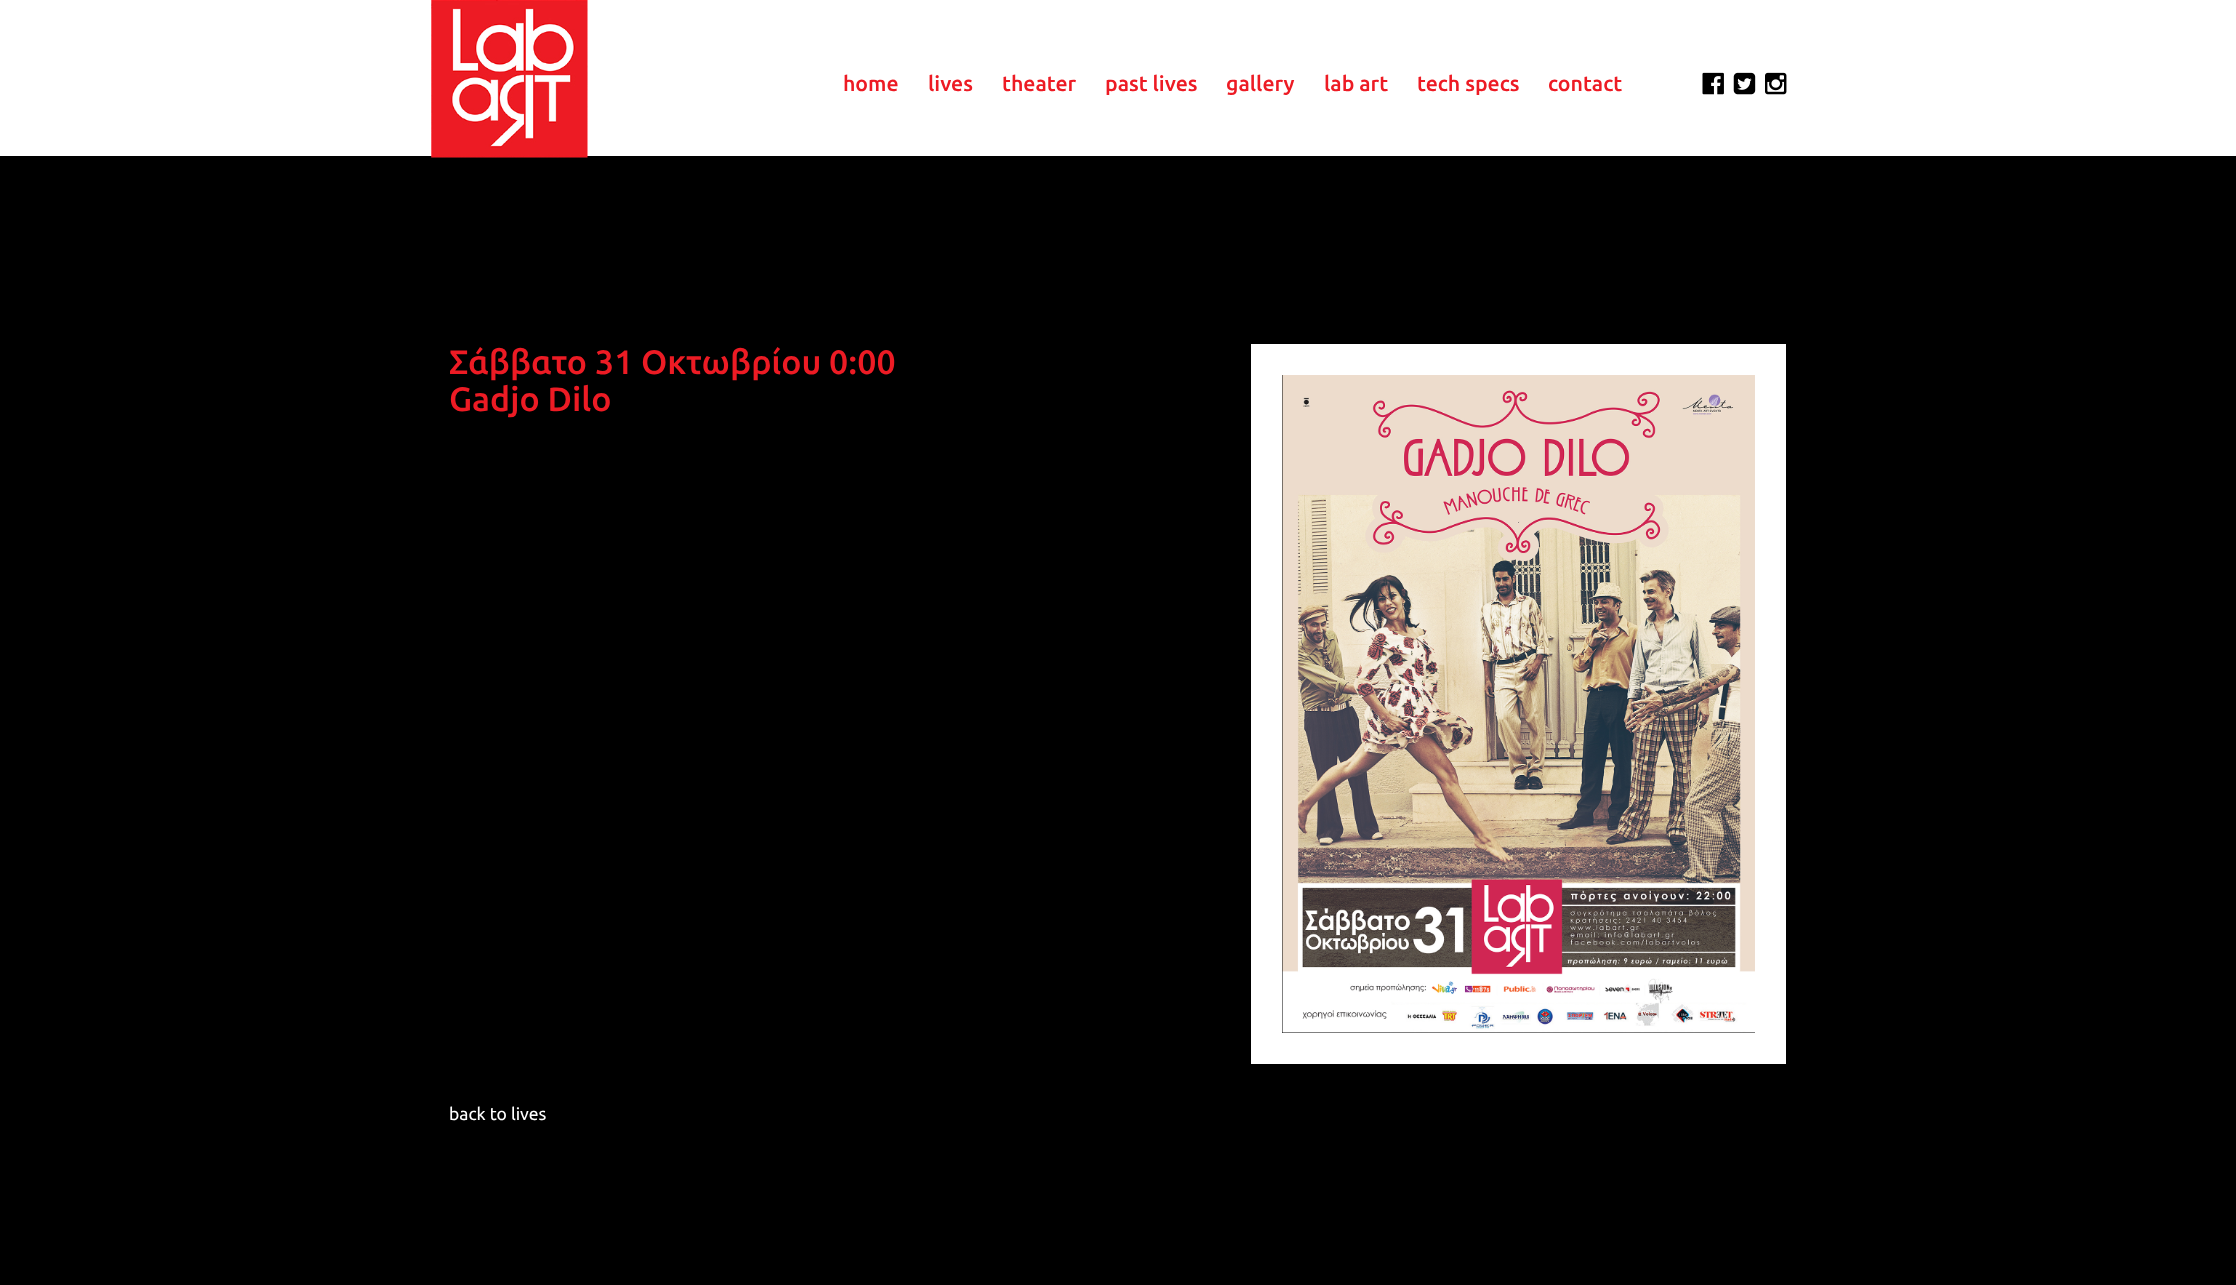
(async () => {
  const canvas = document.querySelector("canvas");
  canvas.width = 2236;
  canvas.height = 1285;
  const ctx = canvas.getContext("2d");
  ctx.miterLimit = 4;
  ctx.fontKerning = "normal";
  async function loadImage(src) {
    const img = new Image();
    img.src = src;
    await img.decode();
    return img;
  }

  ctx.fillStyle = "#000000";
  ctx.fillRect(0, 0, 2236, 1285);
  ctx.fillStyle = "#ffffff";
  ctx.fillRect(0, 0, 2236, 156);
  ctx.drawImage(await loadImage("img/1.png"), 431, 0, 157, 158);
  ctx.drawImage(await loadImage("img/2.png"), 1702, 72, 22, 23);
  ctx.drawImage(await loadImage("img/3.png"), 1733, 72, 23, 23);
  ctx.drawImage(await loadImage("img/4.png"), 1765, 72, 22, 23);
  ctx.strokeStyle = "#ffffff";
  ctx.lineWidth = 31;
  ctx.strokeRect(1266.5, 359.5, 504, 689);
  ctx.drawImage(await loadImage("img/5.png"), 1282, 375, 473, 658);
  ctx.font = "500 21.25px Ubuntu";
  ctx.fillStyle = "#ed1b24";
  for (const [text, x, y] of [
    ["home", 843, 91],
    ["lives", 928, 91],
    ["theater", 1002, 91],
    ["past lives", 1105, 91],
    ["gallery", 1226, 91],
    ["lab art", 1324, 91],
    ["tech specs", 1417, 91],
    ["contact", 1548, 91],
  ]) {
    ctx.fillText(text, x, y);
  }
  ctx.font = "500 33.75px Ubuntu";
  ctx.fillText("Σάββατο 31 Οκτωβρίου 0:00", 449, 374);
  ctx.fillText("Gadjo Dilo", 449, 411);
  ctx.font = "17.5px Ubuntu";
  ctx.fillStyle = "#ffffff";
  ctx.fillText("back to lives", 449, 1120);
})();
